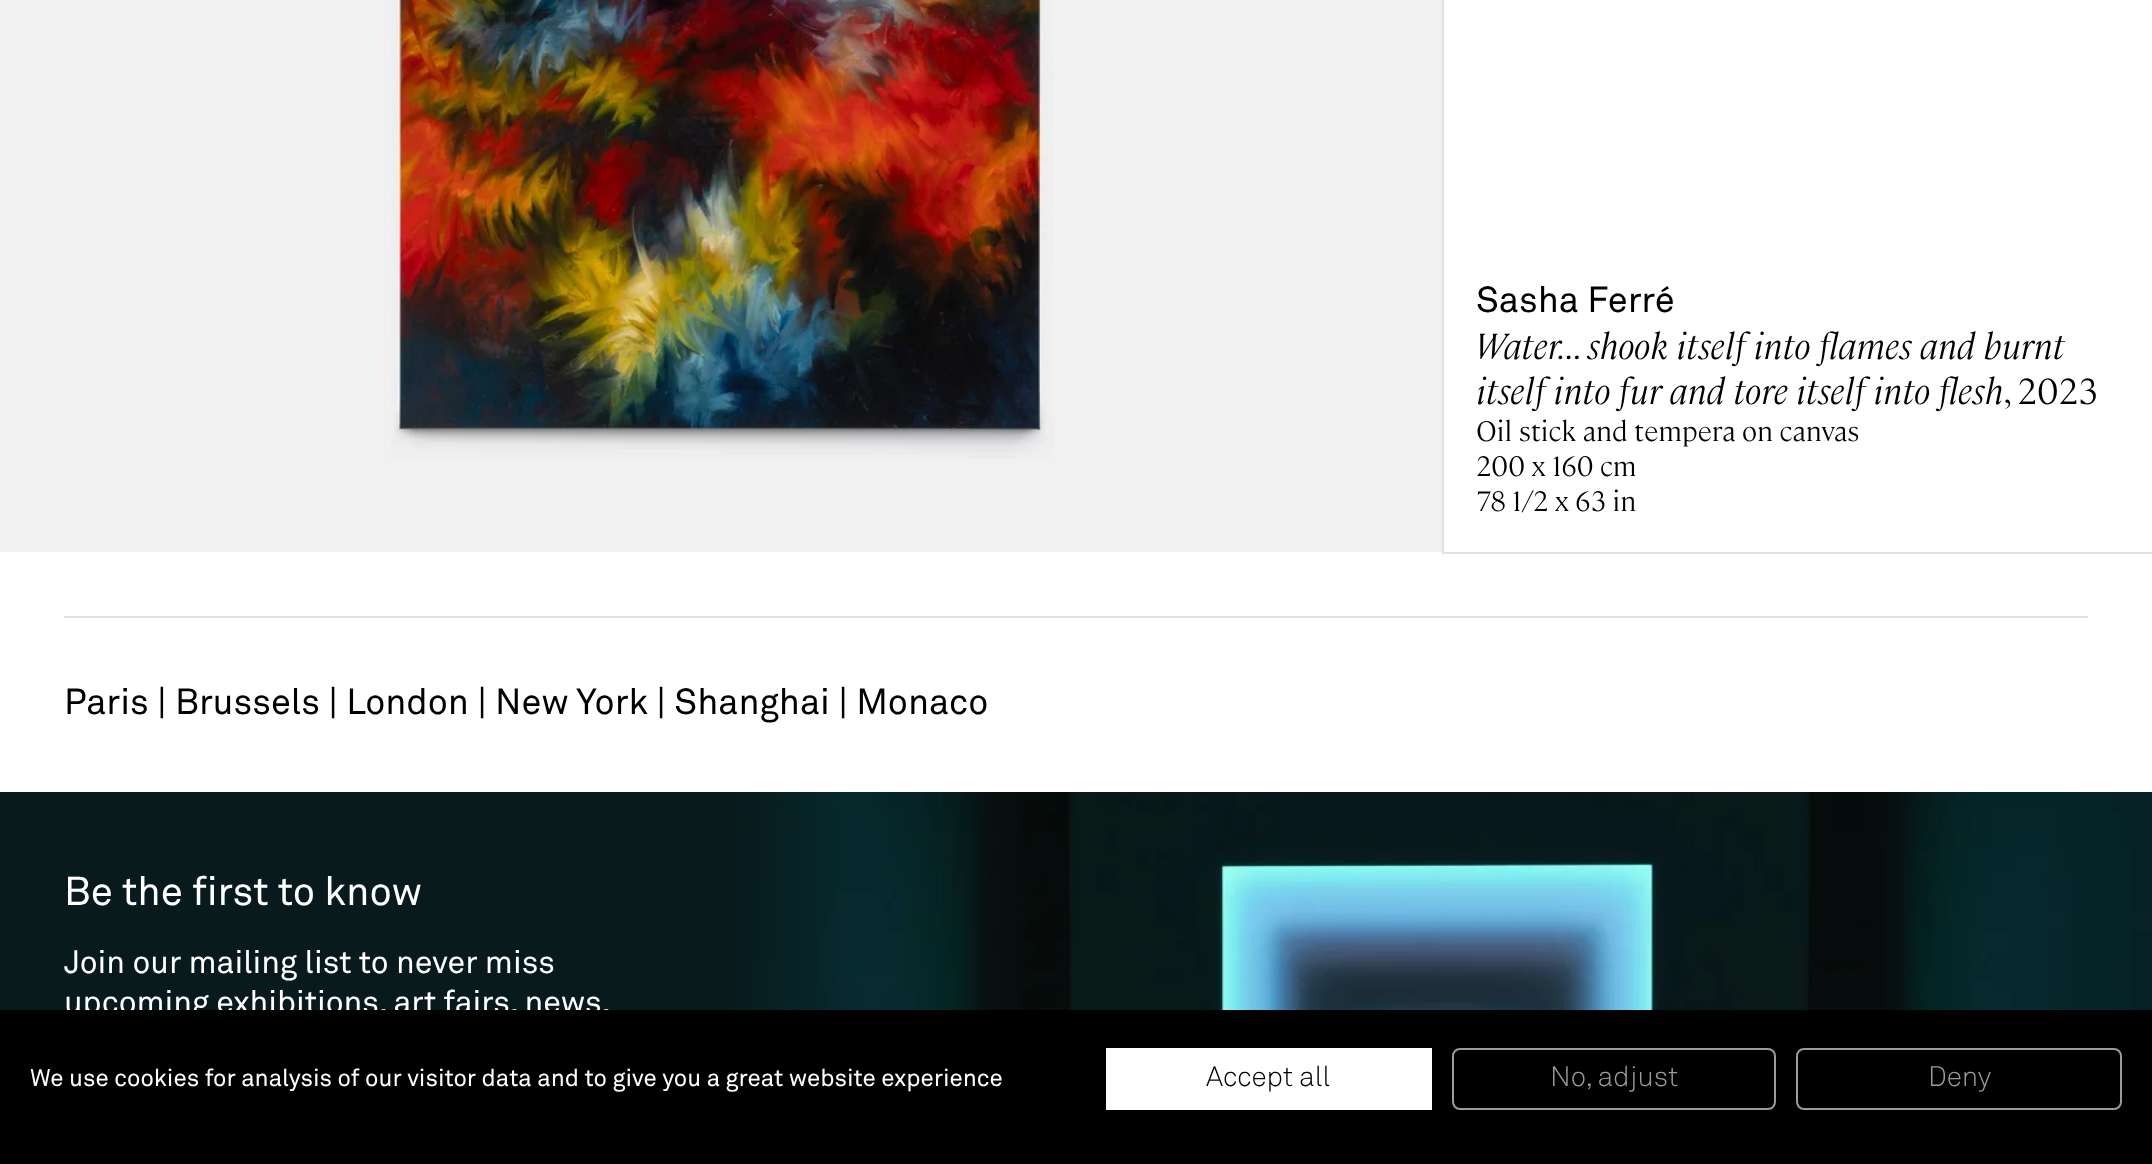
(async () => {
  const canvas = document.querySelector("canvas");
  canvas.width = 2152;
  canvas.height = 1164;
  const ctx = canvas.getContext("2d");
  ctx.miterLimit = 4;
  ctx.fontKerning = "normal";
  async function loadImage(src) {
    const img = new Image();
    img.src = src;
    await img.decode();
    return img;
  }

  ctx.fillStyle = "#ffffff";
  ctx.fillRect(0, 0, 2152, 1164);
  ctx.fillStyle = "#f1f1f1";
  ctx.fillRect(0, 0, 1442, 552);
  ctx.drawImage(await loadImage("img/1.png"), 391, 0, 662, 459);
  ctx.strokeStyle = "#e1e1e1";
  ctx.lineWidth = 2;
  ctx.strokeRect(1443, -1, 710, 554);
  ctx.fillStyle = "#e1e1e1";
  ctx.fillRect(64, 616, 2024, 2);
  ctx.fillStyle = "#091a1d";
  ctx.fillRect(0, 792, 718, 218);
  ctx.drawImage(await loadImage("img/2.png"), 718, 792, 1434, 218);
  ctx.font = "36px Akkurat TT";
  ctx.fillStyle = "#000000";
  ctx.fillText("Sasha Ferré", 1476, 312);
  ctx.font = "italic 300 36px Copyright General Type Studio";
  ctx.fillText("Water... shook itself into flames and burnt", 1476, 359);
  ctx.fillText("itself into fur and tore itself into flesh", 1476, 404);
  ctx.font = "300 36px Copyright General Type Studio";
  ctx.fillText(", 2023", 2003, 404);
  ctx.font = "300 28px Copyright General Type Studio";
  for (const [text, x, y] of [
    ["Oil stick and tempera on canvas", 1476, 441],
    ["200 x 160 cm", 1476, 476],
    ["78 1/2 x 63 in", 1476, 511],
  ]) {
    ctx.fillText(text, x, y);
  }
  ctx.font = "36px Akkurat TT";
  ctx.fillText("Paris | Brussels | London | New York | Shanghai | Monaco", 64, 714);
  ctx.font = "40px Akkurat TT";
  ctx.fillStyle = "#ffffff";
  ctx.fillText("Be the first to know", 64, 905);
  ctx.font = "32px Akkurat TT";
  ctx.fillText("Join our mailing list to never miss", 64, 973);
  ctx.wordSpacing = "-0.5px";
  ctx.fillText("upcoming exhibitions, art fairs, news,", 64, 1013);
  ctx.fillStyle = "#000000";
  ctx.fillRect(0, 1010, 2152, 154);
  ctx.wordSpacing = "0px";
  ctx.font = "24px Akkurat TT";
  ctx.fillStyle = "#ffffff";
  ctx.fillText("We use cookies for analysis of our visitor data and to give you a great website experience", 30, 1086);
  ctx.fillRect(1106, 1048, 326, 62);
  ctx.font = "300 28px Akkurat TT";
  ctx.fillStyle = "#000000";
  ctx.fillText("Accept all", 1206, 1086);
  ctx.beginPath();
  ctx.roundRect(1453, 1049, 322, 60, 7);
  ctx.strokeStyle = "#9b9b9b";
  ctx.stroke();
  ctx.fillStyle = "#9b9b9b";
  ctx.fillText("No, adjust", 1550, 1086);
  ctx.beginPath();
  ctx.roundRect(1797, 1049, 324, 60, 7);
  ctx.stroke();
  ctx.fillText("Deny", 1928, 1086);
})();
